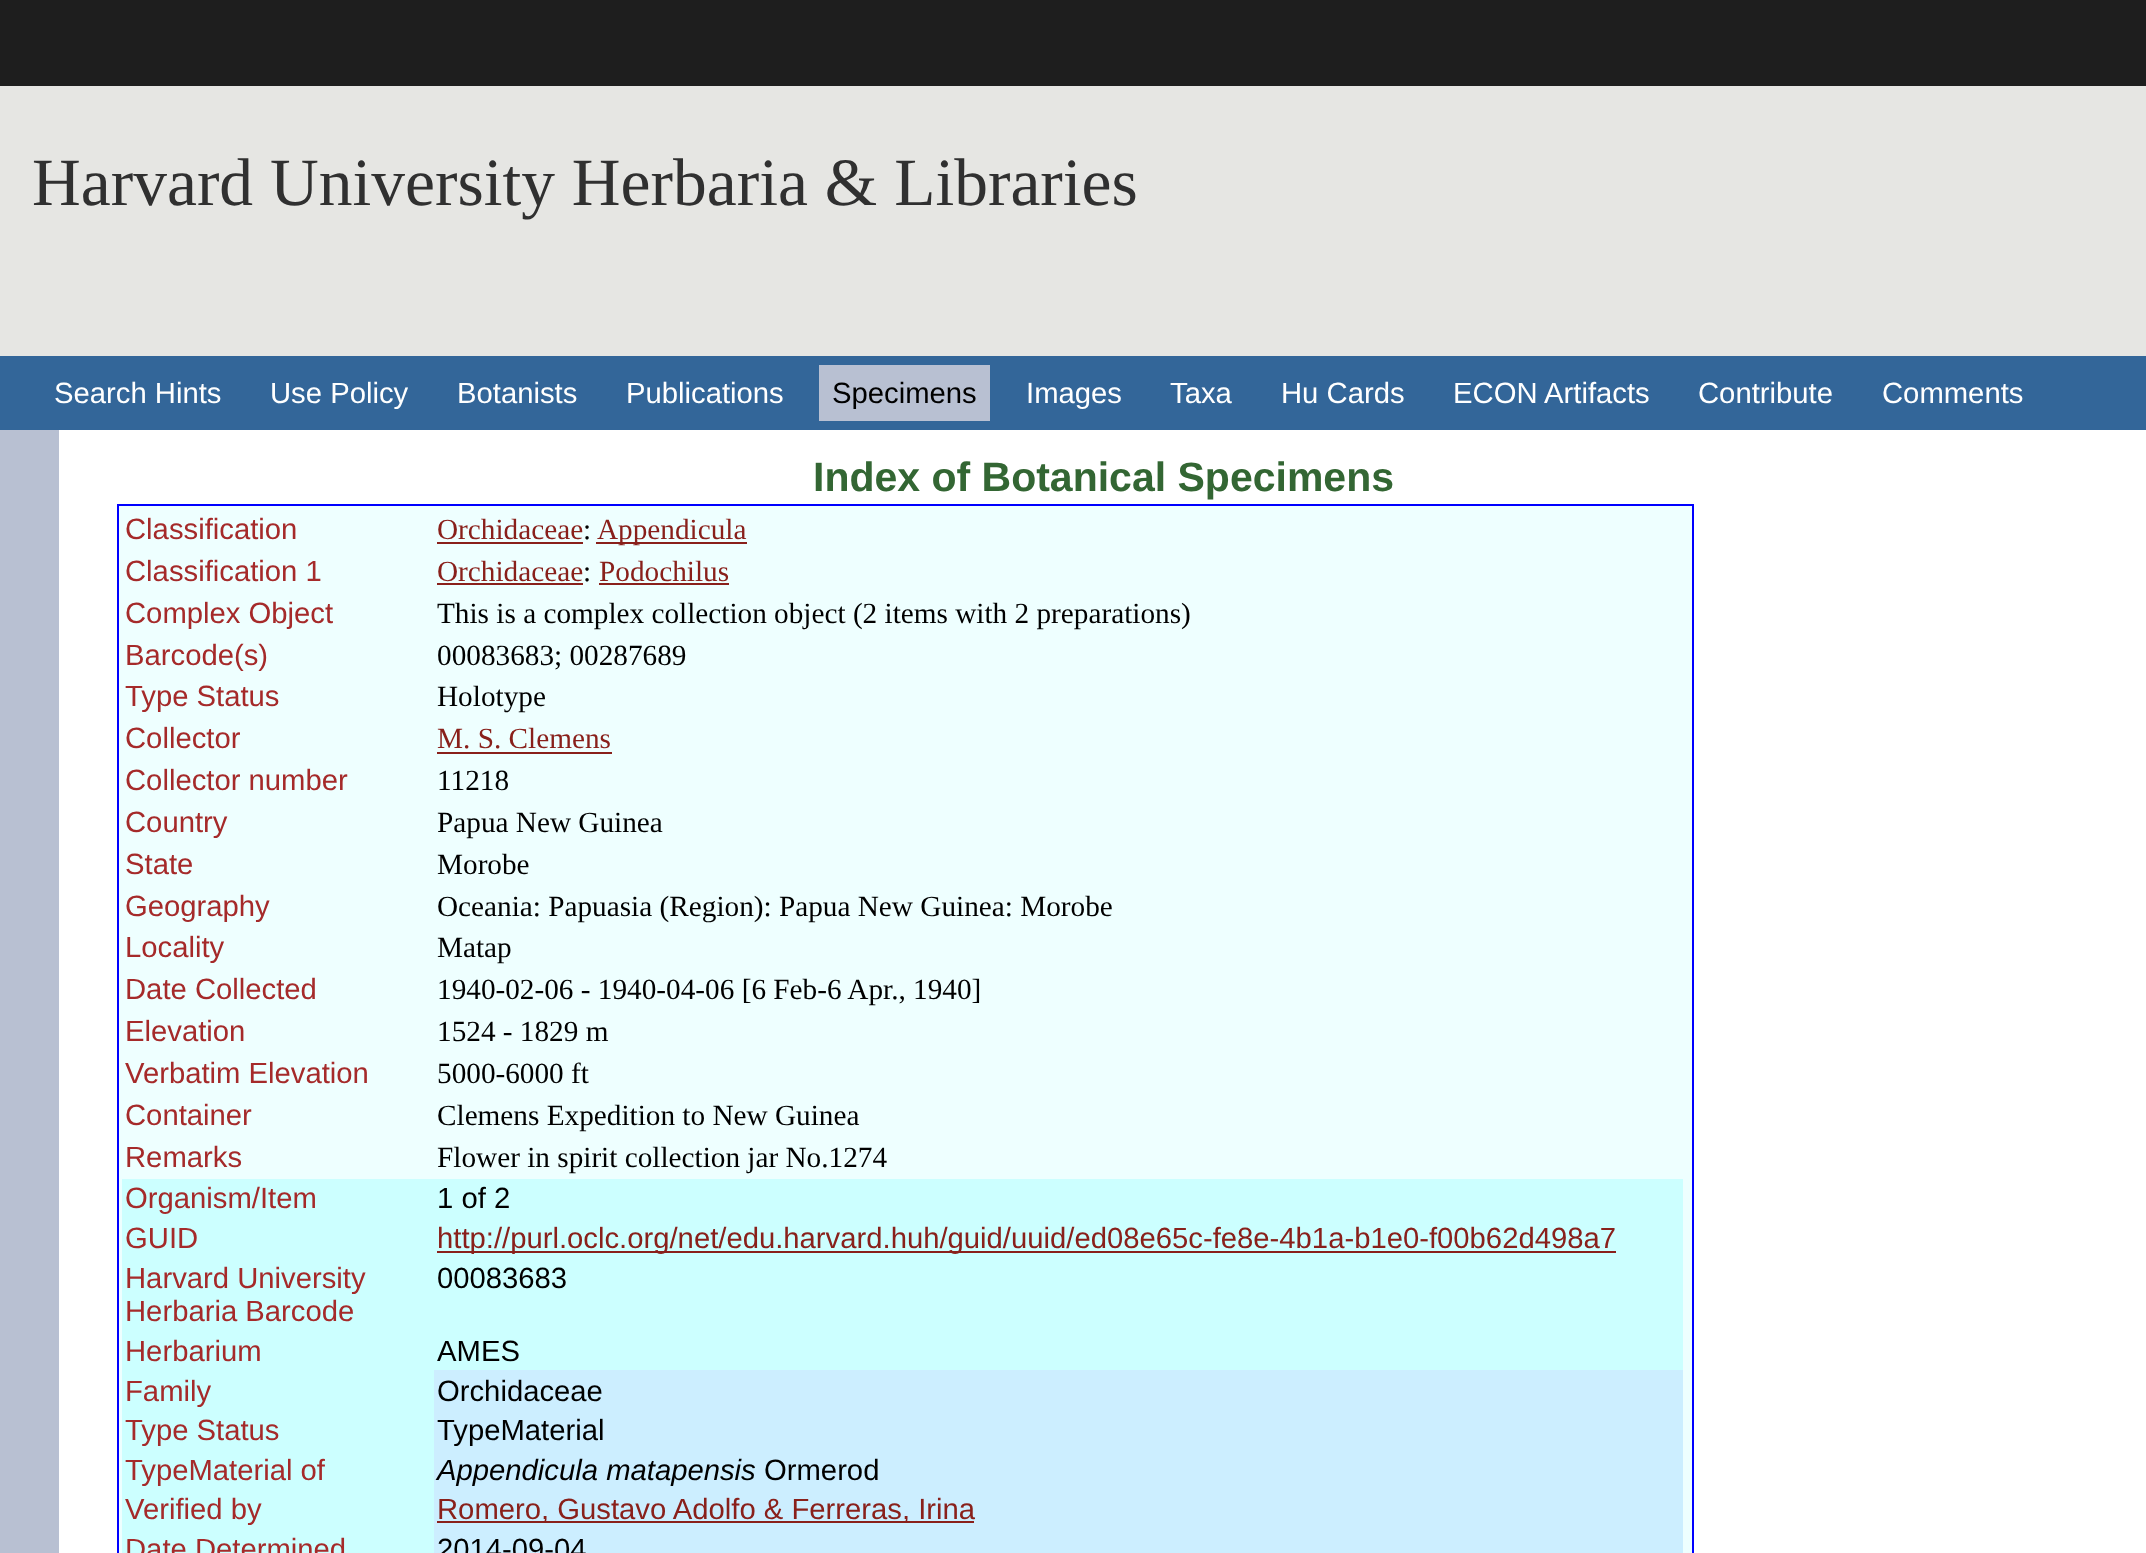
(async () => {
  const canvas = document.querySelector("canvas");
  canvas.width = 2146;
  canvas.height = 1553;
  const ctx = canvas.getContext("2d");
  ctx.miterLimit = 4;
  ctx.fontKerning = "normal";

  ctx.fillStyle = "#1e1e1e";
  ctx.fillRect(0, 0, 2146, 1553);
  for (const [x, y, w, h, color] of [
    [0, 86, 2146, 270, "#e6e6e3"],
    [0, 356, 2146, 74, "#336699"],
    [819, 365, 171, 56, "#b8c0d2"],
    [0, 430, 59, 1123, "#b8c0d2"],
    [59, 430, 2087, 1123, "#ffffff"],
    [119, 506, 1573, 1047, "#eeffff"],
    [117, 504, 1577, 2, "#0000ff"],
    [1692, 504, 2, 1049, "#0000ff"],
    [117, 504, 2, 1049, "#0000ff"],
    [437, 542, 146, 2, "#89201b"],
    [596, 542, 151, 2, "#89201b"],
    [437, 583, 146, 2, "#89201b"],
    [599, 583, 130, 2, "#89201b"],
    [437, 752, 175, 2, "#89201b"],
    [122, 1179, 1561, 191, "#ccffff"],
    [437, 1251, 1179, 2, "#89201b"],
    [122, 1370, 312, 183, "#ccffff"],
    [434, 1370, 1249, 183, "#cceeff"],
    [437, 1521, 537, 2, "#89201b"],
  ]) {
    ctx.fillStyle = color;
    ctx.fillRect(x, y, w, h);
  }
  ctx.font = "67.5px Liberation Serif";
  ctx.fillStyle = "#303030";
  ctx.fillText("Harvard University Herbaria & Libraries", 32, 205);
  ctx.font = "29.25px Liberation Sans";
  ctx.fillStyle = "#ffffff";
  for (const [text, x, y] of [
    ["Search Hints", 54, 403],
    ["Use Policy", 270, 403],
    ["Botanists", 457, 403],
    ["Publications", 626, 403],
  ]) {
    ctx.fillText(text, x, y);
  }
  ctx.fillStyle = "#000000";
  ctx.fillText("Specimens", 832, 403);
  ctx.fillStyle = "#ffffff";
  for (const [text, x, y] of [
    ["Images", 1026, 403],
    ["Taxa", 1170, 403],
    ["Hu Cards", 1281, 403],
    ["ECON Artifacts", 1453, 403],
    ["Contribute", 1698, 403],
    ["Comments", 1882, 403],
  ]) {
    ctx.fillText(text, x, y);
  }
  ctx.font = "bold 41px Liberation Sans";
  ctx.fillStyle = "#336633";
  ctx.fillText("Index of Botanical Specimens", 813, 491);
  ctx.font = "29.25px Liberation Sans";
  ctx.fillStyle = "#a52a2a";
  ctx.fillText("Classification", 125, 539);
  ctx.font = "29.25px Liberation Serif";
  ctx.fillStyle = "#89201b";
  ctx.fillText("Orchidaceae", 437, 539);
  ctx.fillStyle = "#000000";
  ctx.fillText(":", 583, 539);
  ctx.fillStyle = "#89201b";
  ctx.fillText("Appendicula", 597, 539);
  ctx.font = "29.25px Liberation Sans";
  ctx.fillStyle = "#a52a2a";
  ctx.fillText("Classification 1", 125, 581);
  ctx.font = "29.25px Liberation Serif";
  ctx.fillStyle = "#89201b";
  ctx.fillText("Orchidaceae", 437, 581);
  ctx.fillStyle = "#000000";
  ctx.fillText(":", 583, 581);
  ctx.fillStyle = "#89201b";
  ctx.fillText("Podochilus", 599, 581);
  ctx.font = "29.25px Liberation Sans";
  ctx.fillStyle = "#a52a2a";
  ctx.fillText("Complex Object", 125, 623);
  ctx.font = "29.25px Liberation Serif";
  ctx.fillStyle = "#000000";
  ctx.fillText("This is a complex collection object (2 items with 2 preparations)", 437, 623);
  ctx.font = "29.25px Liberation Sans";
  ctx.fillStyle = "#a52a2a";
  ctx.fillText("Barcode(s)", 125, 665);
  ctx.font = "29.25px Liberation Serif";
  ctx.fillStyle = "#000000";
  ctx.fillText("00083683; 00287689", 437, 665);
  ctx.font = "29.25px Liberation Sans";
  ctx.fillStyle = "#a52a2a";
  ctx.fillText("Type Status", 125, 706);
  ctx.font = "29.25px Liberation Serif";
  ctx.fillStyle = "#000000";
  ctx.fillText("Holotype", 437, 706);
  ctx.font = "29.25px Liberation Sans";
  ctx.fillStyle = "#a52a2a";
  ctx.fillText("Collector", 125, 748);
  ctx.font = "29.25px Liberation Serif";
  ctx.fillStyle = "#89201b";
  ctx.fillText("M. S. Clemens", 437, 748);
  ctx.font = "29.25px Liberation Sans";
  ctx.fillStyle = "#a52a2a";
  ctx.fillText("Collector number", 125, 790);
  ctx.font = "29.25px Liberation Serif";
  ctx.fillStyle = "#000000";
  ctx.fillText("11218", 437, 790);
  ctx.font = "29.25px Liberation Sans";
  ctx.fillStyle = "#a52a2a";
  ctx.fillText("Country", 125, 832);
  ctx.font = "29.25px Liberation Serif";
  ctx.fillStyle = "#000000";
  ctx.fillText("Papua New Guinea", 437, 832);
  ctx.font = "29.25px Liberation Sans";
  ctx.fillStyle = "#a52a2a";
  ctx.fillText("State", 125, 874);
  ctx.font = "29.25px Liberation Serif";
  ctx.fillStyle = "#000000";
  ctx.fillText("Morobe", 437, 874);
  ctx.font = "29.25px Liberation Sans";
  ctx.fillStyle = "#a52a2a";
  ctx.fillText("Geography", 125, 916);
  ctx.font = "29.25px Liberation Serif";
  ctx.fillStyle = "#000000";
  ctx.fillText("Oceania: Papuasia (Region): Papua New Guinea: Morobe", 437, 916);
  ctx.font = "29.25px Liberation Sans";
  ctx.fillStyle = "#a52a2a";
  ctx.fillText("Locality", 125, 957);
  ctx.font = "29.25px Liberation Serif";
  ctx.fillStyle = "#000000";
  ctx.fillText("Matap", 437, 957);
  ctx.font = "29.25px Liberation Sans";
  ctx.fillStyle = "#a52a2a";
  ctx.fillText("Date Collected", 125, 999);
  ctx.font = "29.25px Liberation Serif";
  ctx.fillStyle = "#000000";
  ctx.fillText("1940-02-06 - 1940-04-06 [6 Feb-6 Apr., 1940]", 437, 999);
  ctx.font = "29.25px Liberation Sans";
  ctx.fillStyle = "#a52a2a";
  ctx.fillText("Elevation", 125, 1041);
  ctx.font = "29.25px Liberation Serif";
  ctx.fillStyle = "#000000";
  ctx.fillText("1524 - 1829 m", 437, 1041);
  ctx.font = "29.25px Liberation Sans";
  ctx.fillStyle = "#a52a2a";
  ctx.fillText("Verbatim Elevation", 125, 1083);
  ctx.font = "29.25px Liberation Serif";
  ctx.fillStyle = "#000000";
  ctx.fillText("5000-6000 ft", 437, 1083);
  ctx.font = "29.25px Liberation Sans";
  ctx.fillStyle = "#a52a2a";
  ctx.fillText("Container", 125, 1125);
  ctx.font = "29.25px Liberation Serif";
  ctx.fillStyle = "#000000";
  ctx.fillText("Clemens Expedition to New Guinea", 437, 1125);
  ctx.font = "29.25px Liberation Sans";
  ctx.fillStyle = "#a52a2a";
  ctx.fillText("Remarks", 125, 1167);
  ctx.font = "29.25px Liberation Serif";
  ctx.fillStyle = "#000000";
  ctx.fillText("Flower in spirit collection jar No.1274", 437, 1167);
  ctx.font = "29.25px Liberation Sans";
  ctx.fillStyle = "#a52a2a";
  ctx.fillText("Organism/Item", 125, 1208);
  ctx.fillStyle = "#000000";
  ctx.fillText("1 of 2", 437, 1208);
  ctx.fillStyle = "#a52a2a";
  ctx.fillText("GUID", 125, 1248);
  ctx.fillStyle = "#89201b";
  ctx.fillText("http://purl.oclc.org/net/edu.harvard.huh/guid/uuid/ed08e65c-fe8e-4b1a-b1e0-f00b62d498a7", 437, 1248);
  ctx.fillStyle = "#a52a2a";
  ctx.fillText("Harvard University", 125, 1288);
  ctx.fillText("Herbaria Barcode", 125, 1321);
  ctx.fillStyle = "#000000";
  ctx.fillText("00083683", 437, 1288);
  ctx.fillStyle = "#a52a2a";
  ctx.fillText("Herbarium", 125, 1361);
  ctx.fillStyle = "#000000";
  ctx.fillText("AMES", 437, 1361);
  ctx.fillStyle = "#a52a2a";
  ctx.fillText("Family", 125, 1401);
  ctx.fillStyle = "#000000";
  ctx.fillText("Orchidaceae", 437, 1401);
  ctx.fillStyle = "#a52a2a";
  ctx.fillText("Type Status", 125, 1440);
  ctx.fillStyle = "#000000";
  ctx.fillText("TypeMaterial", 437, 1440);
  ctx.fillStyle = "#a52a2a";
  ctx.fillText("TypeMaterial of", 125, 1480);
  ctx.font = "italic 29.25px Liberation Sans";
  ctx.fillStyle = "#000000";
  ctx.fillText("Appendicula matapensis", 437, 1480);
  ctx.font = "29.25px Liberation Sans";
  ctx.fillText("Ormerod", 764, 1480);
  ctx.fillStyle = "#a52a2a";
  ctx.fillText("Verified by", 125, 1519);
  ctx.fillStyle = "#89201b";
  ctx.fillText("Romero, Gustavo Adolfo & Ferreras, Irina", 437, 1519);
  ctx.fillStyle = "#a52a2a";
  ctx.fillText("Date Determined", 125, 1559);
  ctx.fillStyle = "#000000";
  ctx.fillText("2014-09-04", 437, 1559);
})();
